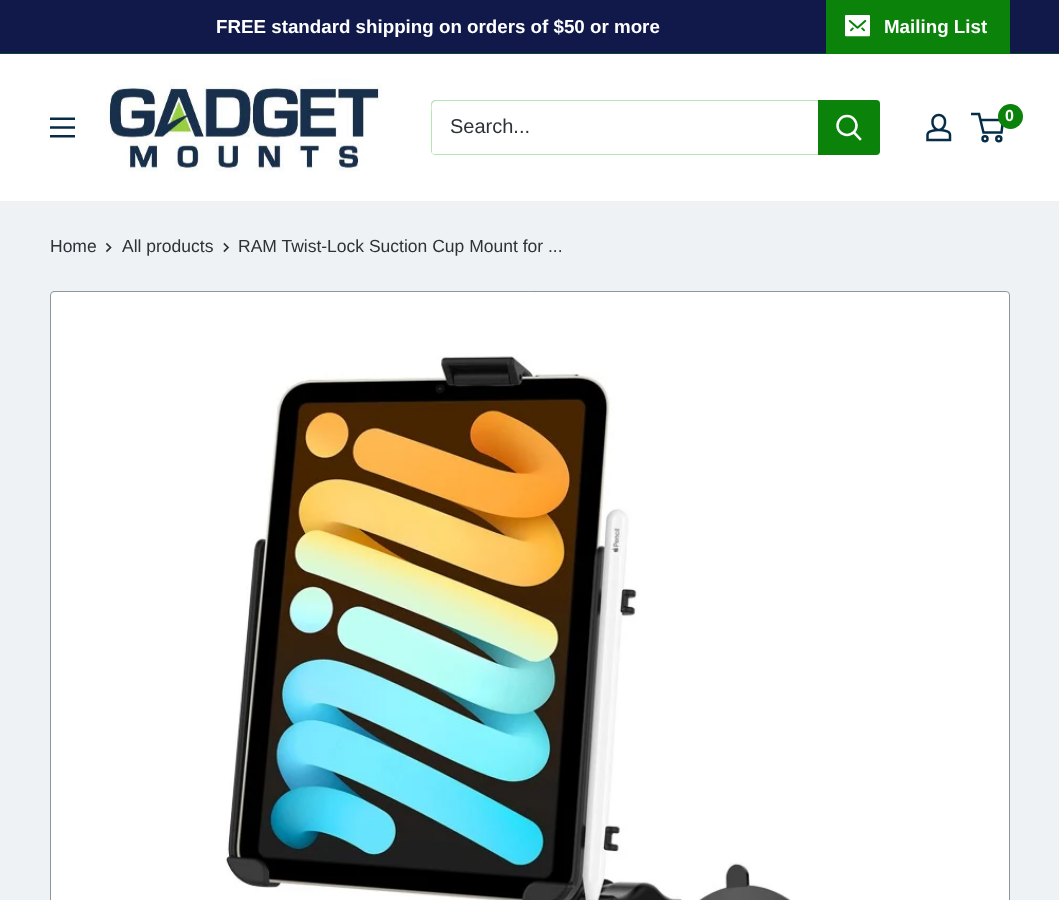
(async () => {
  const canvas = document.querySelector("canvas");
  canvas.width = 1059;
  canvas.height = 900;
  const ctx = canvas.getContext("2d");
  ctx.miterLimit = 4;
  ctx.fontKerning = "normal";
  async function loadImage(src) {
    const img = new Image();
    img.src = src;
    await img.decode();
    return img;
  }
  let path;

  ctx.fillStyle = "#eef2f4";
  ctx.fillRect(0, 0, 1059, 900);
  ctx.fillStyle = "#101949";
  ctx.fillRect(0, 0, 1059, 53);
  ctx.fillStyle = "#0b4533";
  ctx.fillRect(0, 53, 1059, 1);
  ctx.fillStyle = "#0b830b";
  path = new Path2D("M826 1V54H1010V52H826Z");
  ctx.fill(path);
  ctx.fillRect(826, 0, 184, 52);
  ctx.drawImage(await loadImage("img/1.png"), 845, 15, 25, 22);
  ctx.fillStyle = "#ffffff";
  ctx.fillRect(0, 54, 1059, 147);
  ctx.drawImage(await loadImage("img/2.png"), 104, 79, 278, 93);
  ctx.drawImage(await loadImage("img/3.png"), 926, 113, 26, 29);
  ctx.beginPath();
  ctx.arc(985, 138.8, 2.5, 0, Math.PI * 2);
  ctx.strokeStyle = "#052d48";
  ctx.lineWidth = 2.5;
  ctx.stroke();
  ctx.beginPath();
  ctx.arc(998.8, 138.8, 2.5, 0, Math.PI * 2);
  ctx.stroke();
  path = new Path2D("M980.5 120H1003L1001.5 132.5H983.5L979 114H971");
  ctx.stroke(path);
  ctx.fillStyle = "#0b830b";
  ctx.beginPath();
  ctx.arc(1010.5, 116.5, 12.5, 0, Math.PI * 2);
  ctx.fill();
  ctx.drawImage(await loadImage("img/4.png"), 50, 117, 25, 21);
  ctx.fillStyle = "#b3e6b3";
  path = new Path2D("M432 153C432 154 434 155 435 155H876C878 155 880 153 880 151V104C880 103 880 102 879 101V142C879 144 881 154 875 154H434Z");
  ctx.fill(path);
  path = new Path2D("M436 101H879C878 100 877 100 876 100H435C433 100 431 102 431 104V151C431 152 432 153 432 154V113C432 110 430 101 436 101Z");
  ctx.fill(path);
  ctx.fillStyle = "#0b830b";
  ctx.beginPath();
  ctx.roundRect(818, 100, 62, 55, [0, 4, 4, 0]);
  ctx.fill();
  path = new Path2D("M860 139L854 132.5");
  ctx.strokeStyle = "#ffffff";
  ctx.lineCap = "square";
  ctx.stroke(path);
  ctx.beginPath();
  ctx.arc(847, 125.5, 9.5, 0, Math.PI * 2);
  ctx.stroke();
  path = new Path2D("M107 244L110.5 247.5L107 251");
  ctx.strokeStyle = "#2c3235";
  ctx.lineWidth = 1.7;
  ctx.stroke(path);
  path = new Path2D("M224.5 244L228 247.5L224.5 251");
  ctx.stroke(path);
  ctx.fillStyle = "#ffffff";
  ctx.beginPath();
  ctx.roundRect(50.5, 291.5, 959, 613, 3.5);
  ctx.fill();
  ctx.strokeStyle = "#8f9699";
  ctx.lineWidth = 1;
  ctx.stroke();
  ctx.drawImage(await loadImage("img/5.png"), 225, 355, 566, 545);
  ctx.font = "bold 18.75px Liberation Sans";
  ctx.fillText("FREE standard shipping on orders of $50 or more", 216, 33);
  ctx.fillText("Mailing List", 884, 33);
  ctx.font = "bold 16px Liberation Sans";
  ctx.fillText("0", 1005, 121);
  ctx.font = "20px Liberation Sans";
  ctx.fillStyle = "#2c3235";
  ctx.fillText("Search...", 450, 133);
  ctx.font = "17.5px Liberation Sans";
  for (const [text, x, y] of [
    ["Home", 50, 252],
    ["All products", 122, 252],
    ["RAM Twist-Lock Suction Cup Mount for ...", 238, 252],
  ]) {
    ctx.fillText(text, x, y);
  }
})();
